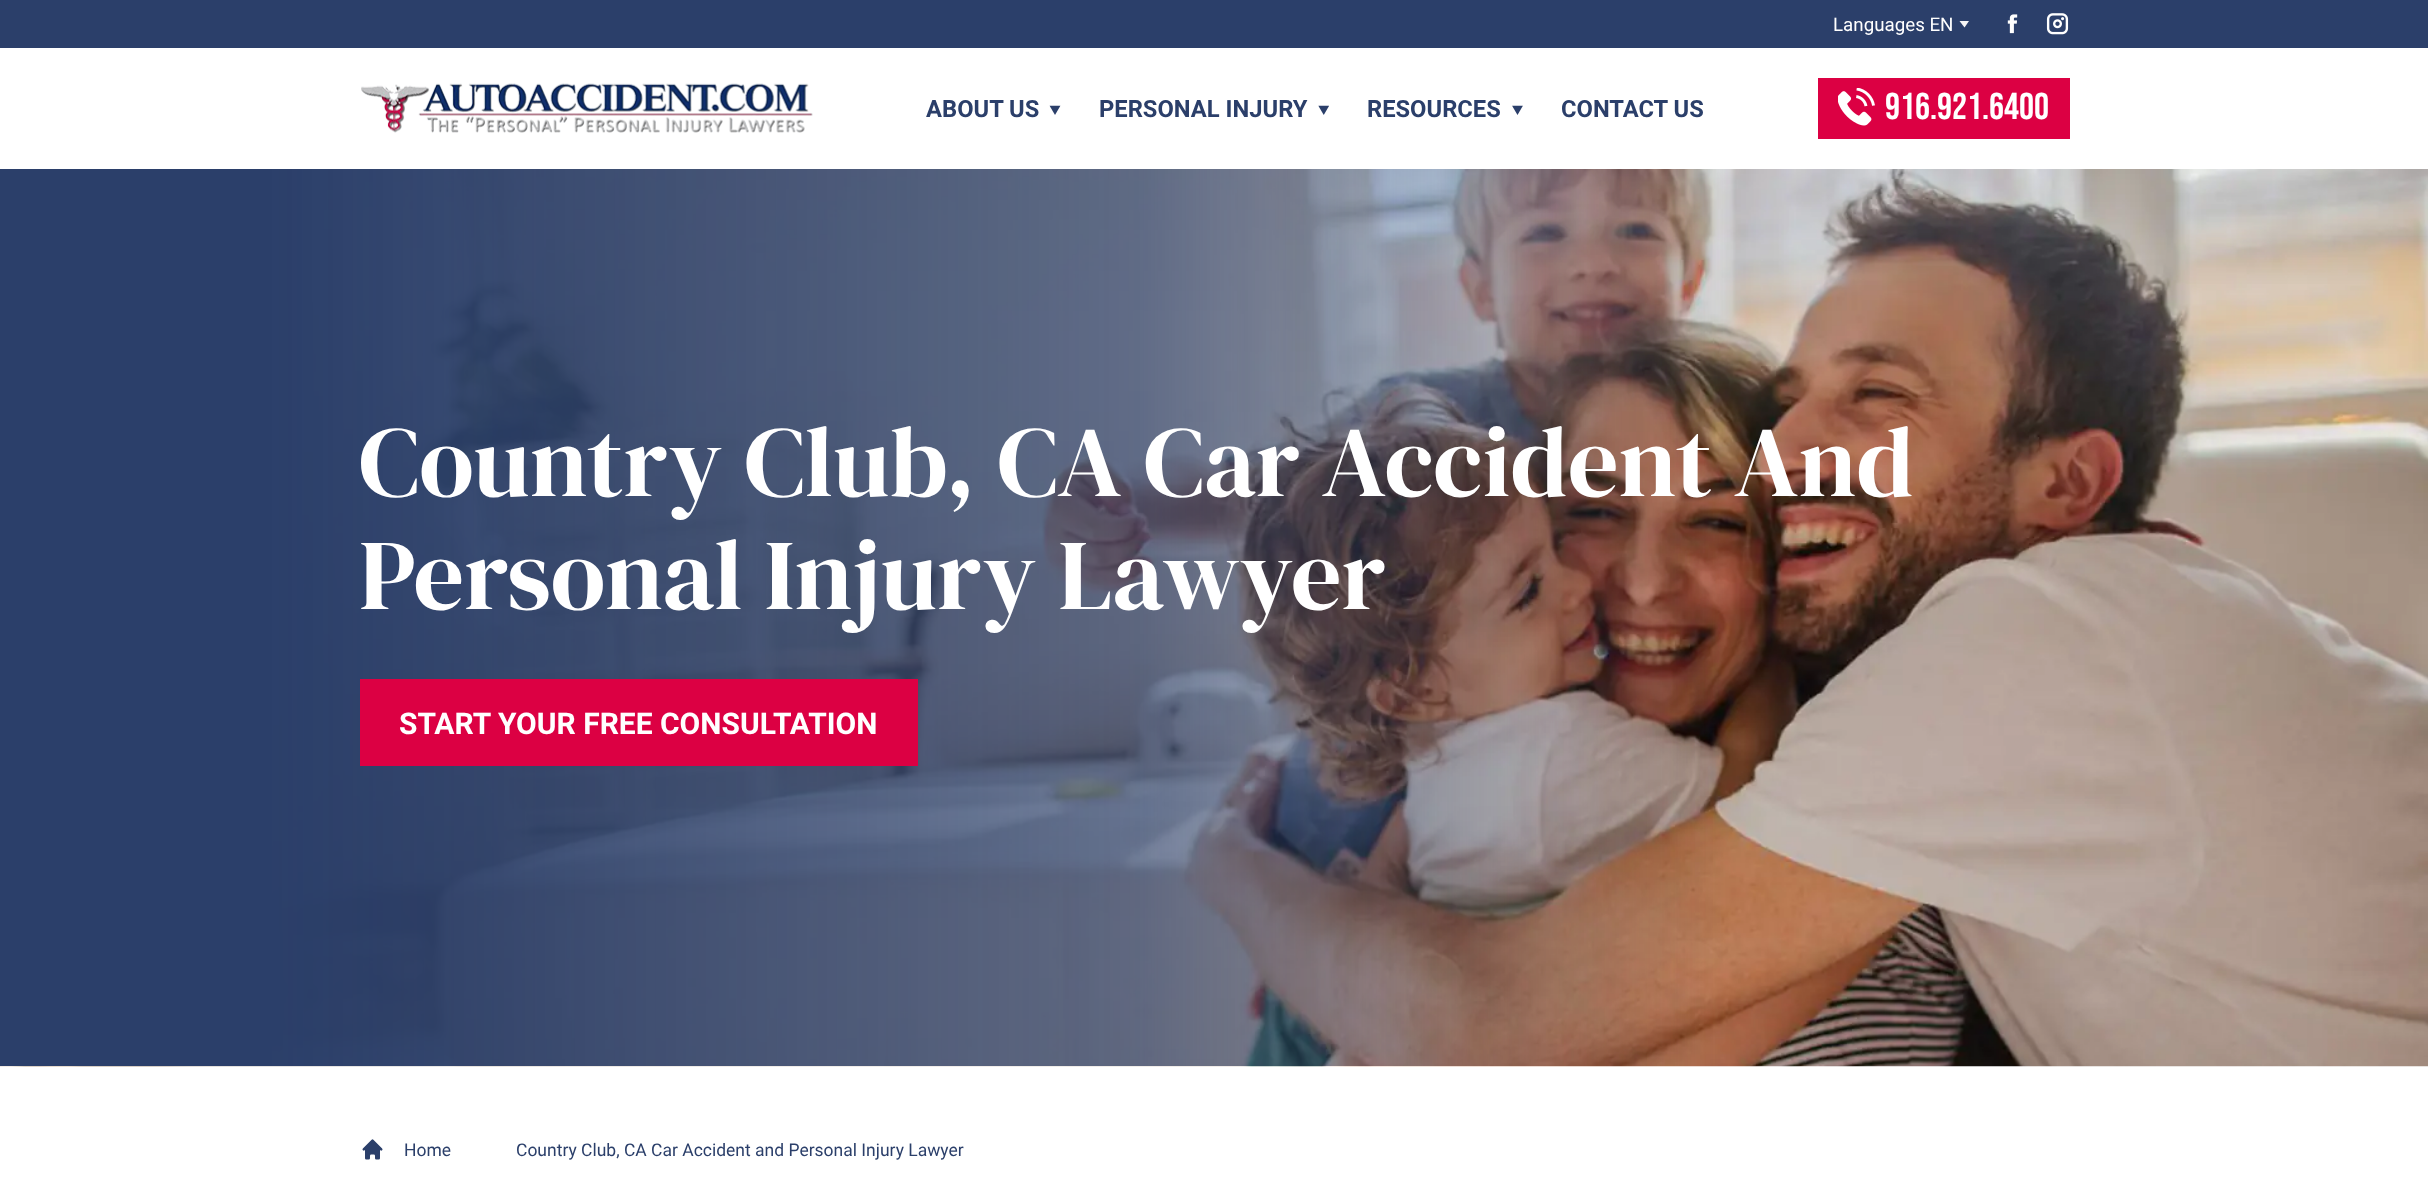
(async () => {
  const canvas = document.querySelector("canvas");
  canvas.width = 2428;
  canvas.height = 1197;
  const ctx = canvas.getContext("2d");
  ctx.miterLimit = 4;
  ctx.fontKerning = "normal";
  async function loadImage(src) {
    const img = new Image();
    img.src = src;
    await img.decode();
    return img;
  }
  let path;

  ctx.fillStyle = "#ffffff";
  ctx.fillRect(0, 0, 2428, 1197);
  ctx.fillStyle = "#2b3f6a";
  ctx.fillRect(0, 0, 2428, 48);
  ctx.fillStyle = "#f6f6f6";
  path = new Path2D("M1964.5 27.5L1959.5 21H1969Z");
  ctx.fill(path);
  ctx.drawImage(await loadImage("img/1.png"), 2007, 14, 11, 20);
  ctx.drawImage(await loadImage("img/2.png"), 2046, 13, 23, 22);
  ctx.drawImage(await loadImage("img/3.png"), 361, 83, 452, 50);
  ctx.drawImage(await loadImage("img/4.png"), 1049, 105, 12, 10);
  ctx.drawImage(await loadImage("img/5.png"), 1318, 105, 11, 10);
  ctx.drawImage(await loadImage("img/6.png"), 1512, 105, 11, 10);
  ctx.fillStyle = "#dc0043";
  ctx.fillRect(1818, 78, 252, 61);
  ctx.drawImage(await loadImage("img/7.png"), 1838, 88, 37, 38);
  ctx.drawImage(await loadImage("img/8.png"), 0, 169, 2428, 898);
  ctx.fillRect(360, 679, 558, 87);
  ctx.drawImage(await loadImage("img/9.png"), 362, 1139, 21, 21);
  ctx.font = "18.75px Roboto";
  ctx.fillStyle = "#ffffff";
  ctx.fillText("Languages EN", 1833, 31);
  ctx.font = "bold 23.75px Roboto";
  ctx.fillStyle = "#2b3f6a";
  for (const [text, x, y] of [
    ["ABOUT US", 926, 117],
    ["PERSONAL INJURY", 1099, 117],
    ["RESOURCES", 1367, 117],
    ["CONTACT US", 1561, 117],
  ]) {
    ctx.fillText(text, x, y);
  }
  ctx.font = "37.5px Bebas Neue";
  ctx.fillStyle = "#ffffff";
  ctx.fillText("916.921.6400", 1885, 119);
  ctx.font = "100px DM Serif Display";
  ctx.fillText("Country Club, CA Car Accident And", 359, 496);
  ctx.fillText("Personal Injury Lawyer", 359, 609);
  ctx.font = "bold 30px Roboto";
  ctx.fillText("START YOUR FREE CONSULTATION", 399, 734);
  ctx.font = "17.5px Roboto";
  ctx.fillStyle = "#2b3f6a";
  ctx.fillText("Home", 404, 1156);
  ctx.fillText("Country Club, CA Car Accident and Personal Injury Lawyer", 516, 1156);
})();
